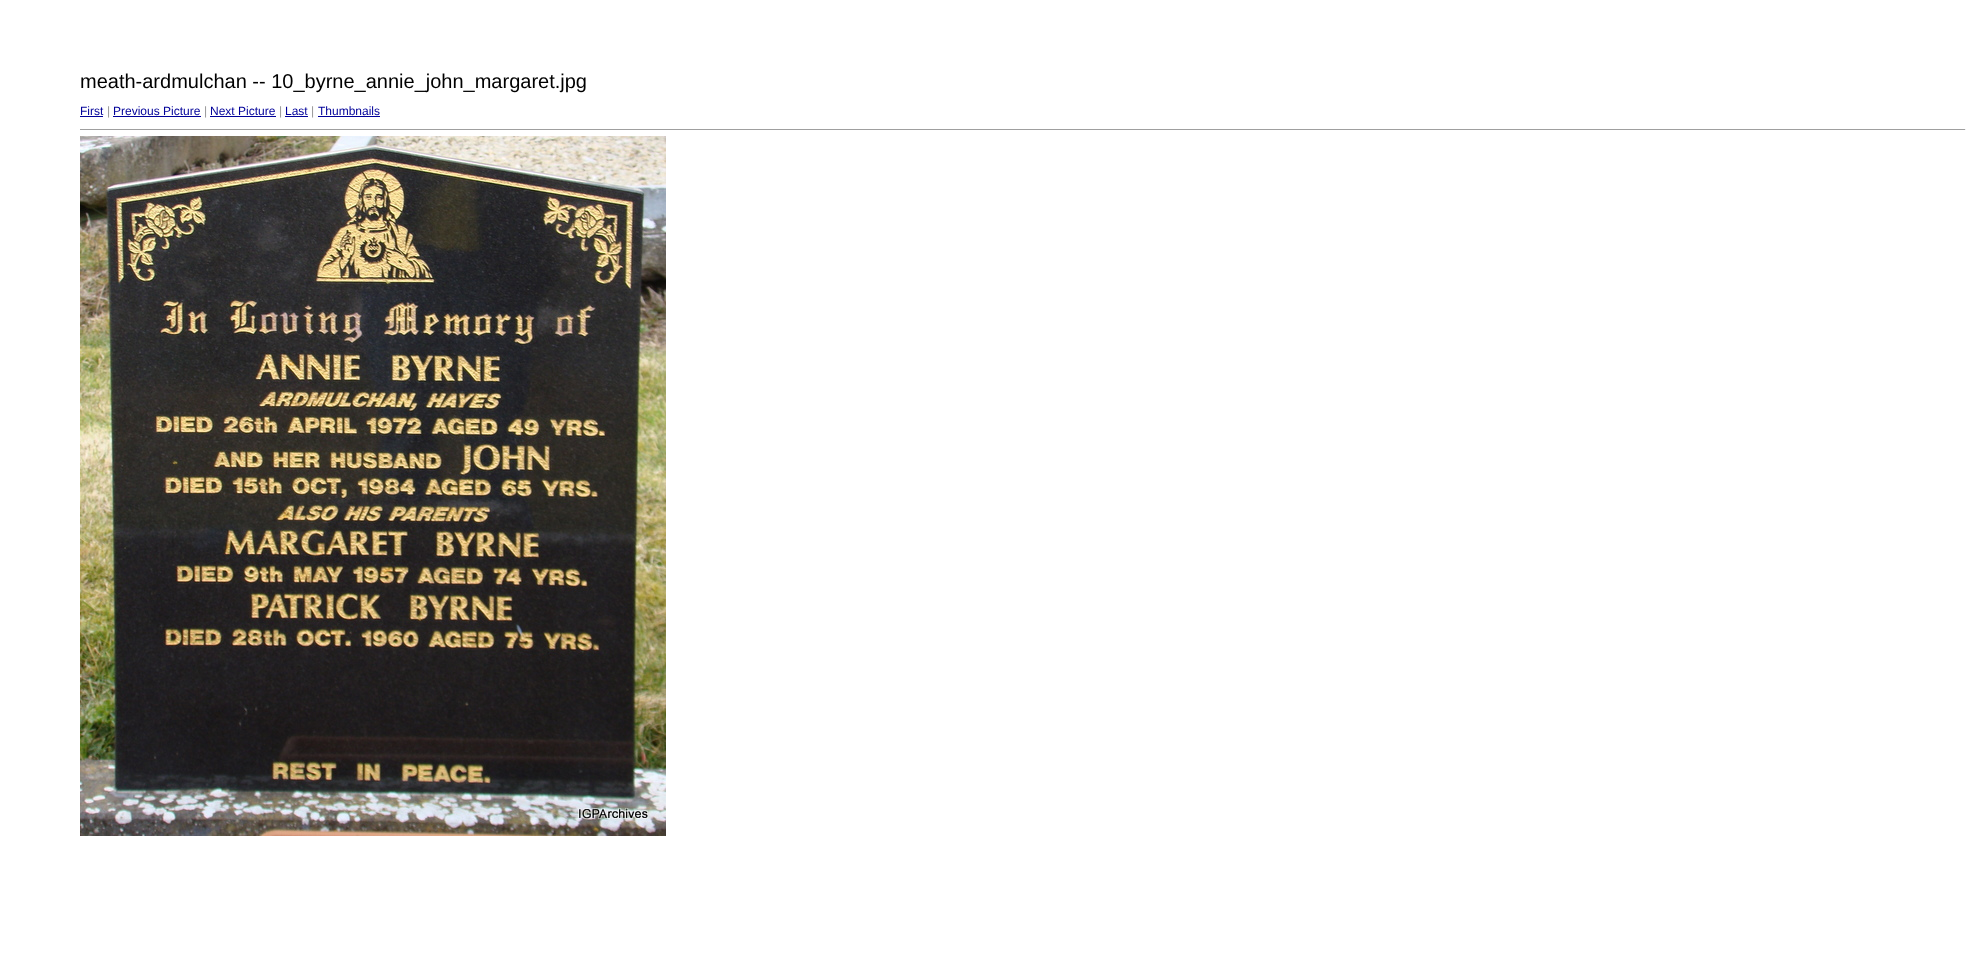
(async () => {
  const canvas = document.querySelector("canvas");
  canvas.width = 1974;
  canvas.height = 957;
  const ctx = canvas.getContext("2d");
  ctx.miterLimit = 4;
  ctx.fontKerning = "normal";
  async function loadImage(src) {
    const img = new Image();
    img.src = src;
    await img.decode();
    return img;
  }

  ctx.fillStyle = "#ffffff";
  ctx.fillRect(0, 0, 1974, 957);
  for (const [x, y, w, h, color] of [
    [80, 116, 23, 1, "#000099"],
    [113, 116, 88, 1, "#000099"],
    [210, 116, 66, 1, "#000099"],
    [285, 116, 23, 1, "#000099"],
    [318, 116, 62, 1, "#000099"],
    [80, 129, 1886, 1, "#9f9f9f"],
    [1965, 129, 1, 1, "#eeeeee"],
  ]) {
    ctx.fillStyle = color;
    ctx.fillRect(x, y, w, h);
  }
  ctx.drawImage(await loadImage("img/1.png"), 80, 136, 586, 700);
  ctx.font = "20px Liberation Sans";
  ctx.fillStyle = "#000000";
  ctx.fillText("meath-ardmulchan -- 10_byrne_annie_john_margaret.jpg", 80, 88);
  ctx.font = "12px Liberation Sans";
  ctx.fillStyle = "#000099";
  ctx.fillText("First", 80, 115);
  ctx.fillStyle = "#979797";
  ctx.fillText("|", 107, 115);
  ctx.fillStyle = "#000099";
  ctx.fillText("Previous Picture", 113, 115);
  ctx.fillStyle = "#979797";
  ctx.fillText("|", 204, 115);
  ctx.fillStyle = "#000099";
  ctx.fillText("Next Picture", 210, 115);
  ctx.fillStyle = "#979797";
  ctx.fillText("|", 279, 115);
  ctx.fillStyle = "#000099";
  ctx.fillText("Last", 285, 115);
  ctx.fillStyle = "#979797";
  ctx.fillText("|", 311, 115);
  ctx.fillStyle = "#000099";
  ctx.fillText("Thumbnails", 318, 115);
})();
